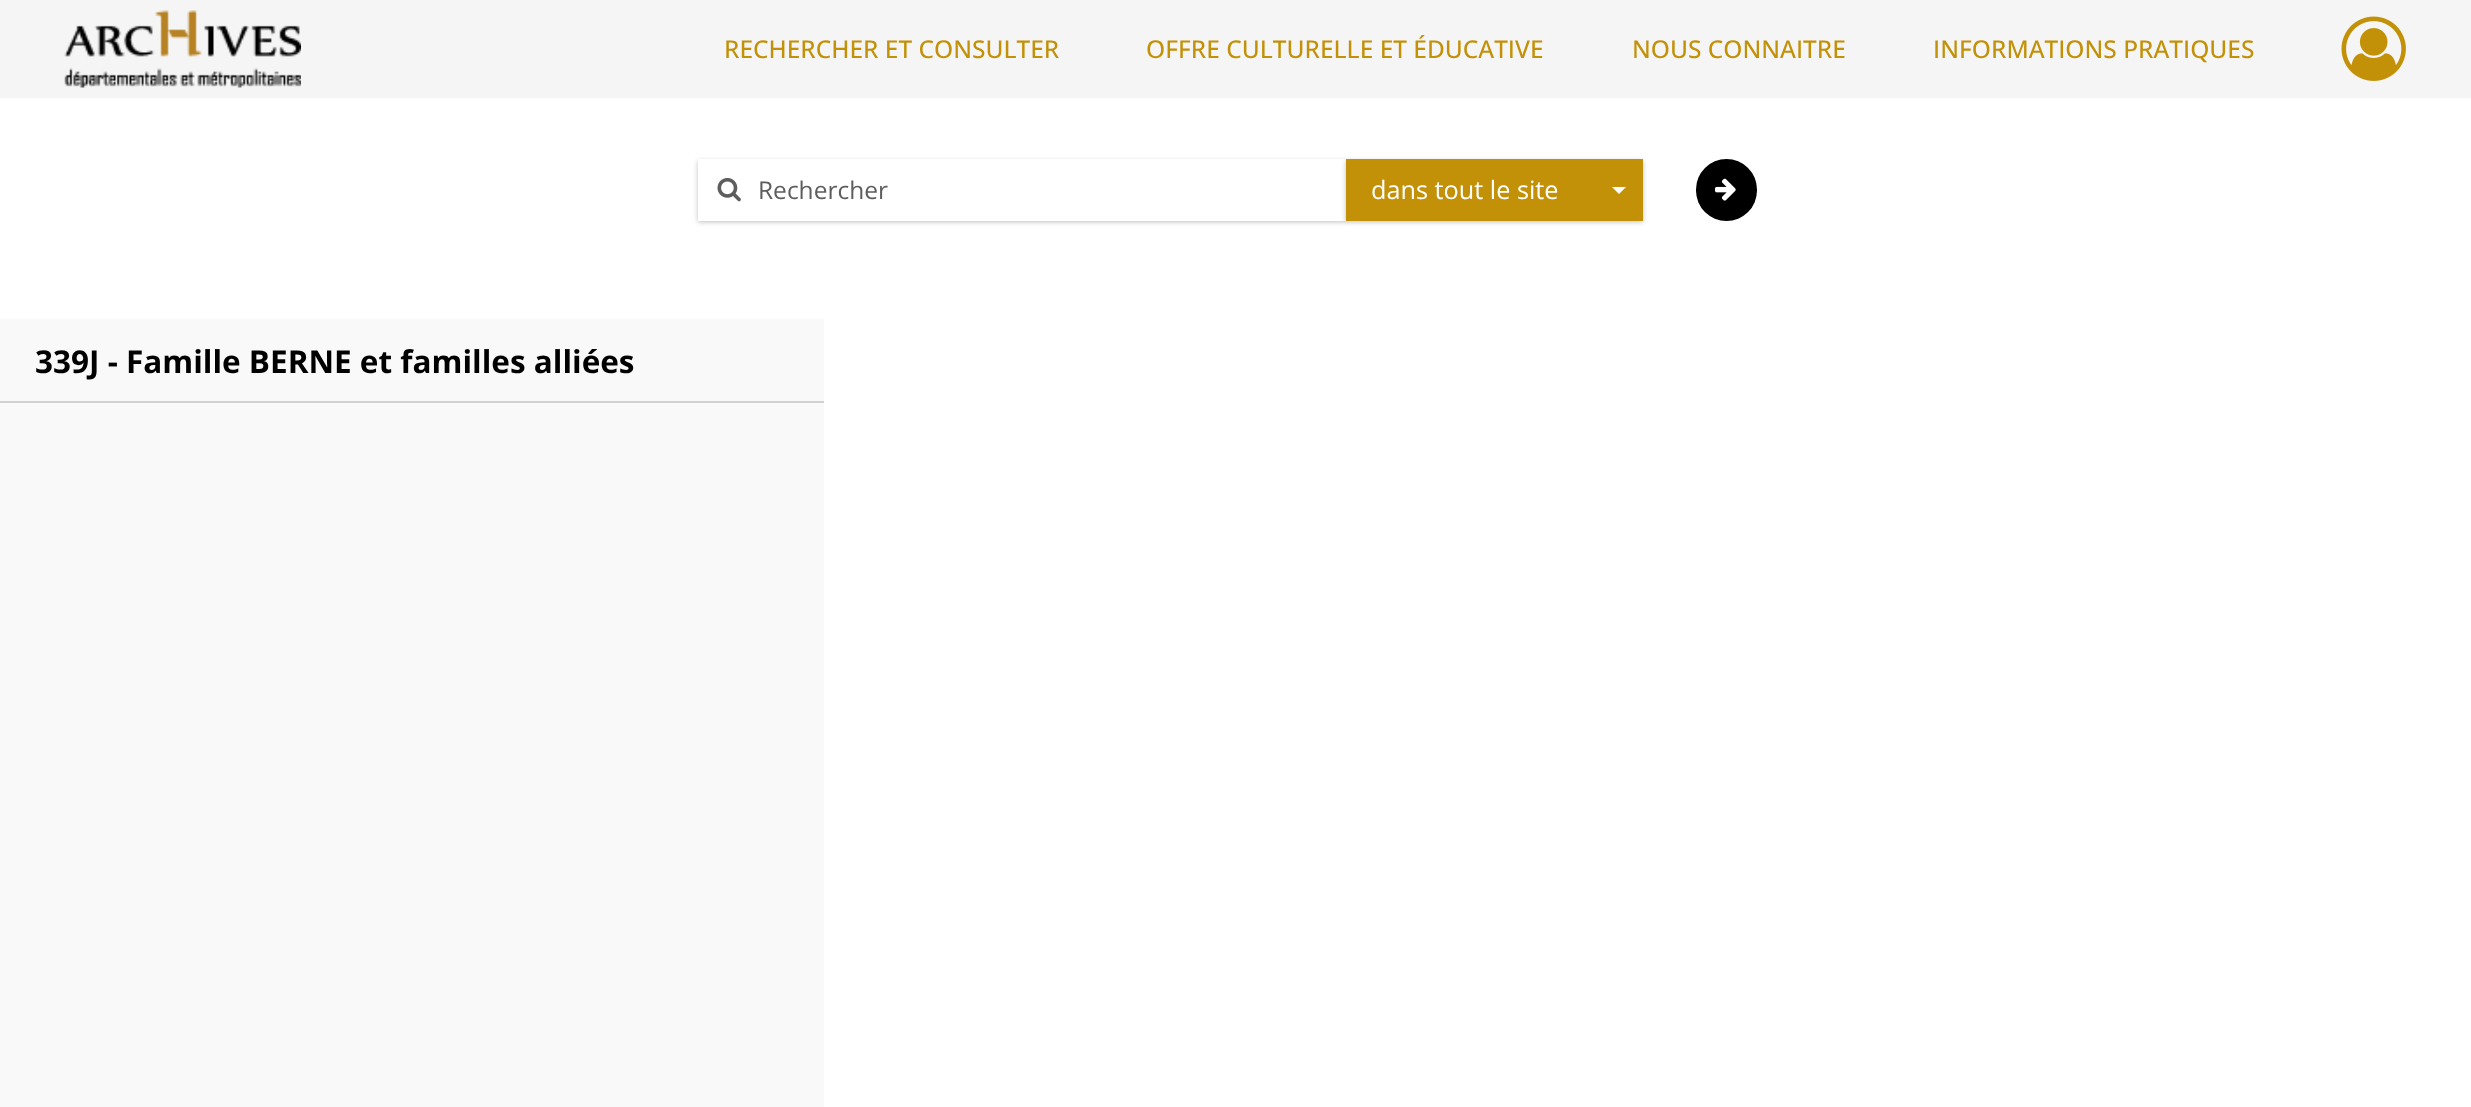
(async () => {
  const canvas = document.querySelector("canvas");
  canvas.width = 2471;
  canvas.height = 1107;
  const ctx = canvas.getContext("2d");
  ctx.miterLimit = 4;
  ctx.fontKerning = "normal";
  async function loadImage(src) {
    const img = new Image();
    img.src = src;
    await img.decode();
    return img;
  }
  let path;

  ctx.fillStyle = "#ffffff";
  ctx.fillRect(0, 0, 2471, 1107);
  ctx.fillStyle = "#f5f5f5";
  ctx.fillRect(0, 0, 2471, 98);
  ctx.drawImage(await loadImage("img/1.png"), 64, 10, 237, 78);
  ctx.drawImage(await loadImage("img/2.png"), 2341, 16, 65, 65);
  ctx.fillStyle = "rgba(0, 0, 0, 0.25)";
  ctx.filter = "blur(2.5px)";
  ctx.beginPath();
  ctx.rect(698, 161, 648, 61);
  ctx.fill();
  ctx.filter = "none";
  ctx.fillStyle = "#ffffff";
  ctx.fillRect(698, 159, 648, 62);
  ctx.drawImage(await loadImage("img/3.png"), 717, 178, 24, 24);
  ctx.fillStyle = "rgba(0, 0, 0, 0.25)";
  ctx.filter = "blur(2.5px)";
  ctx.beginPath();
  ctx.rect(1346, 161, 297, 61);
  ctx.fill();
  ctx.filter = "none";
  ctx.fillStyle = "#c39108";
  ctx.fillRect(1346, 159, 297, 62);
  ctx.fillStyle = "#ffffff";
  path = new Path2D("M1612 187H1626L1619 194Z");
  ctx.fill(path);
  ctx.fillStyle = "#000000";
  ctx.beginPath();
  ctx.roundRect(1696, 159, 61, 62, 30.5);
  ctx.fill();
  ctx.drawImage(await loadImage("img/4.png"), 1715, 178, 21, 23);
  for (const [x, y, w, h, color] of [
    [0, 319, 824, 82, "#f9f9f9"],
    [0, 401, 824, 2, "#d1d1d1"],
    [0, 403, 824, 704, "#f9f9f9"],
  ]) {
    ctx.fillStyle = color;
    ctx.fillRect(x, y, w, h);
  }
  ctx.font = "500 24.5px Open Sans";
  ctx.fillStyle = "#c39108";
  for (const [text, x, y] of [
    ["RECHERCHER ET CONSULTER", 724, 58],
    ["OFFRE CULTURELLE ET ÉDUCATIVE", 1146, 58],
    ["NOUS CONNAITRE", 1632, 58],
    ["INFORMATIONS PRATIQUES", 1933, 58],
  ]) {
    ctx.fillText(text, x, y);
  }
  ctx.font = "24.5px Open Sans";
  ctx.fillStyle = "#5d5d5d";
  ctx.fillText("Rechercher", 758, 199);
  ctx.font = "25.25px Open Sans";
  ctx.fillStyle = "#ffffff";
  ctx.fillText("dans tout le site", 1371, 199);
  ctx.font = "bold 31.5px Open Sans";
  ctx.fillStyle = "#000000";
  ctx.fillText("339J - Famille BERNE et familles alliées", 35, 373);
})();
